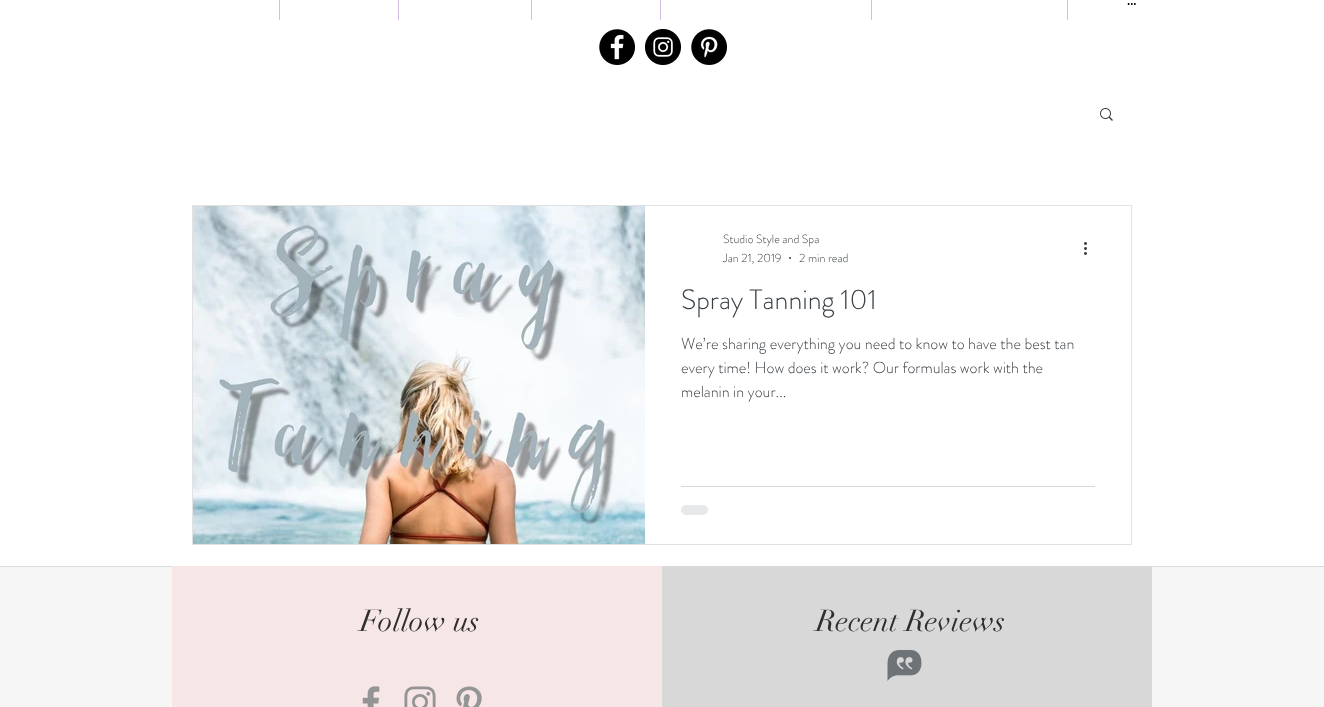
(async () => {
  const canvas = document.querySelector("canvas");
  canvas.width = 1324;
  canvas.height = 707;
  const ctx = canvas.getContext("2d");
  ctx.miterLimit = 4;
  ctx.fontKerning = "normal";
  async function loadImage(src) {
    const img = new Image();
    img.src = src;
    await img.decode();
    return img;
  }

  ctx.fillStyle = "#ffffff";
  ctx.fillRect(0, 0, 1324, 707);
  for (const [x, y, w, h, color] of [
    [279, 0, 1, 20, "#d8bde2"],
    [398, 0, 1, 20, "#d8bde2"],
    [531, 0, 1, 20, "#d8bde2"],
    [660, 0, 1, 20, "#d8bde2"],
    [871, 0, 1, 20, "#d8bde2"],
    [1067, 0, 1, 20, "#d8bde2"],
  ]) {
    ctx.fillStyle = color;
    ctx.fillRect(x, y, w, h);
  }
  ctx.drawImage(await loadImage("img/1.png"), 599, 29, 36, 36);
  ctx.drawImage(await loadImage("img/2.png"), 645, 29, 36, 36);
  ctx.drawImage(await loadImage("img/3.png"), 691, 29, 36, 36);
  ctx.drawImage(await loadImage("img/4.png"), 1100, 108, 13, 13);
  ctx.strokeStyle = "#e2e2e2";
  ctx.strokeRect(192.5, 205.5, 939, 339);
  ctx.drawImage(await loadImage("img/5.png"), 193, 206, 452, 338);
  ctx.fillStyle = "#393f44";
  ctx.beginPath();
  ctx.arc(790, 258, 1, 0, Math.PI * 2);
  ctx.fill();
  ctx.drawImage(await loadImage("img/6.png"), 1084, 242, 3, 13);
  ctx.fillStyle = "#d7d9da";
  ctx.fillRect(681, 486, 414, 1);
  ctx.fillStyle = "#e7e8e9";
  ctx.beginPath();
  ctx.roundRect(681, 505, 27, 10, 5);
  ctx.fill();
  for (const [x, y, w, h, color] of [
    [0, 567, 1324, 140, "#f6f6f6"],
    [0, 566, 1324, 1, "#dadbdb"],
    [172, 566, 490, 141, "#f7e6e6"],
  ]) {
    ctx.fillStyle = color;
    ctx.fillRect(x, y, w, h);
  }
  ctx.drawImage(await loadImage("img/7.png"), 362, 686, 18, 21);
  ctx.drawImage(await loadImage("img/8.png"), 404, 686, 32, 21);
  ctx.drawImage(await loadImage("img/9.png"), 456, 686, 26, 21);
  ctx.fillStyle = "#d8d8d8";
  ctx.fillRect(662, 566, 490, 141);
  ctx.drawImage(await loadImage("img/10.png"), 887, 650, 35, 31);
  ctx.font = "bold 14px Raleway";
  ctx.fillStyle = "#000000";
  ctx.fillText("...", 1127, 5);
  ctx.font = "300 12px 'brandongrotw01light'";
  ctx.fillStyle = "#393f44";
  for (const [text, x, y] of [
    ["Studio Style and Spa", 723, 243],
    ["Jan 21, 2019", 723, 262],
    ["2 min read", 799, 262],
  ]) {
    ctx.fillText(text, x, y);
  }
  ctx.font = "300 28px 'brandongrotw01light'";
  ctx.fillText("Spray Tanning 101", 681, 309);
  ctx.font = "300 16px 'brandongrotw01light'";
  for (const [text, x, y] of [
    ["We’re sharing everything you need to know to have the best tan", 681, 349],
    ["every time! How does it work? Our formulas work with the", 681, 373],
    ["melanin in your...", 681, 397],
  ]) {
    ctx.fillText(text, x, y);
  }
  ctx.font = "30px didot";
  ctx.fillStyle = "#2f2e2e";
  ctx.fillText("Follow us", 360, 631);
  ctx.fillText("Recent Reviews", 816, 631);
})();
